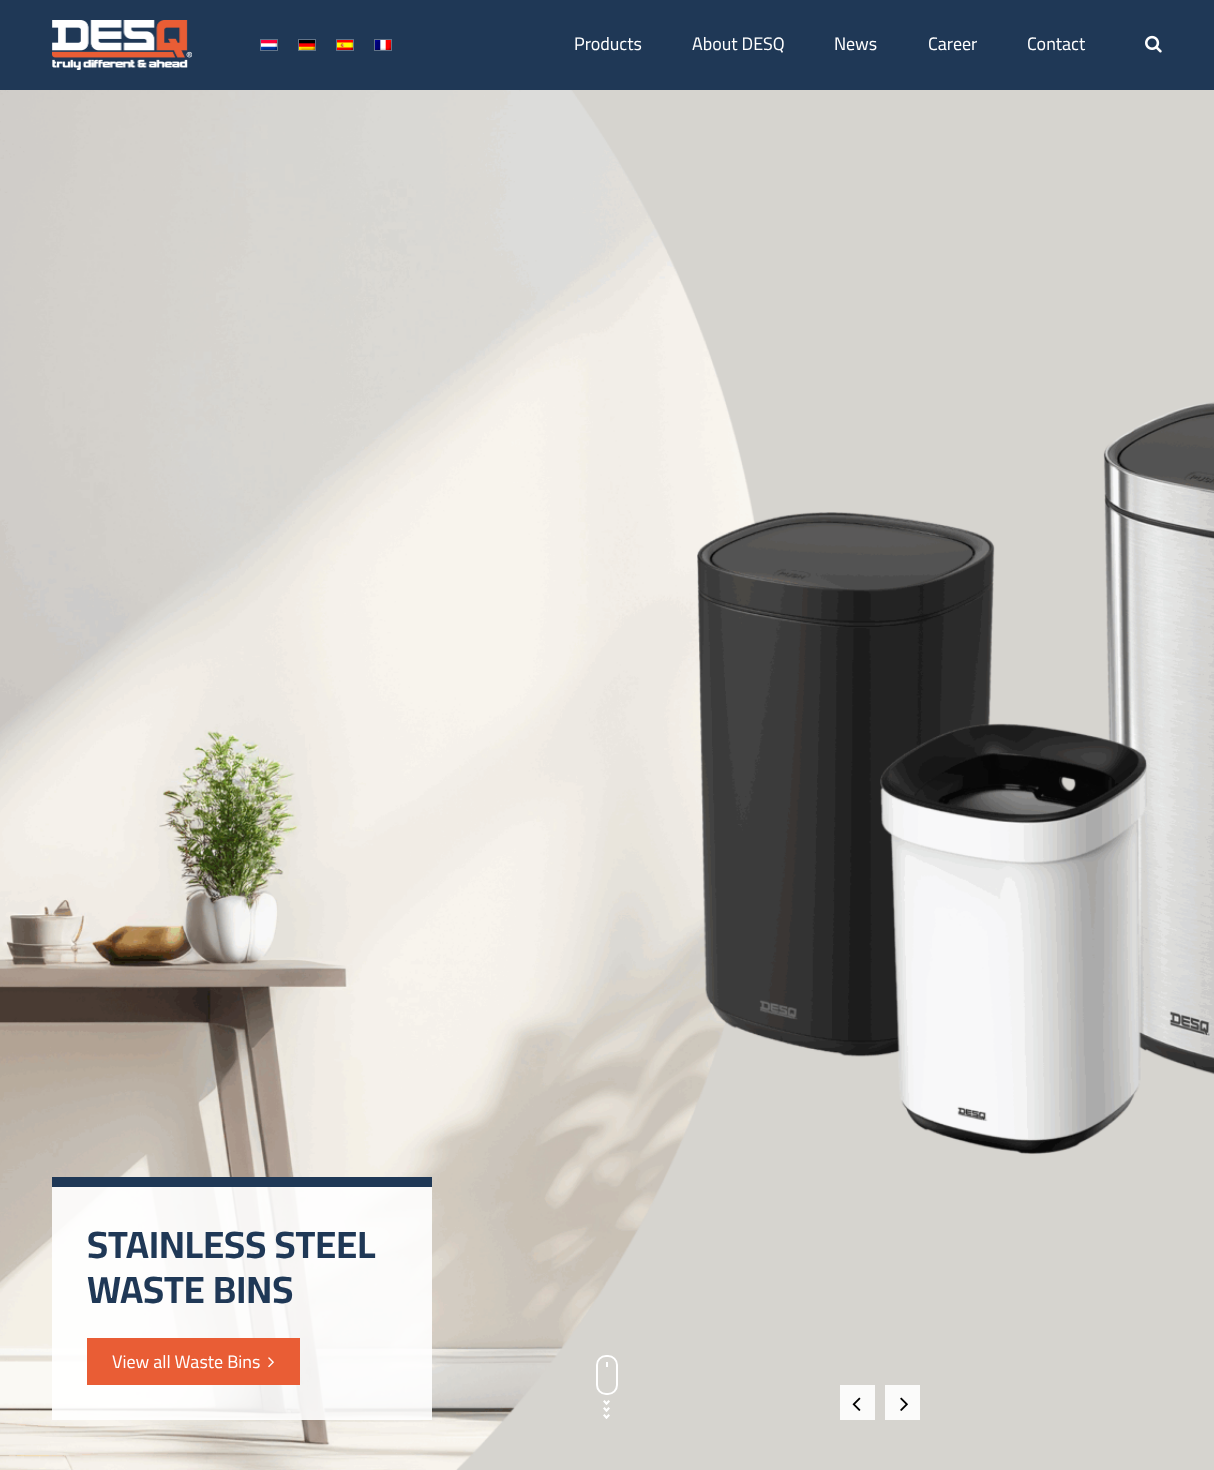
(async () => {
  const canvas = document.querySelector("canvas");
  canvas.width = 1214;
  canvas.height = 1470;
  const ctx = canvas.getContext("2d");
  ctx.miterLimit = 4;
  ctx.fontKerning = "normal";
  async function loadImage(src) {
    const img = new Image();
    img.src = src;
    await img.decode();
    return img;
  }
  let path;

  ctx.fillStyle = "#ffffff";
  ctx.fillRect(0, 0, 1214, 1470);
  ctx.fillStyle = "#1f3856";
  ctx.fillRect(0, 0, 1214, 90);
  ctx.drawImage(await loadImage("img/1.png"), 52, 20, 140, 50);
  ctx.strokeStyle = "#627489";
  ctx.strokeRect(260.5, 39.5, 17, 11);
  ctx.drawImage(await loadImage("img/2.png"), 261, 40, 16, 10);
  ctx.strokeRect(298.5, 39.5, 17, 11);
  ctx.drawImage(await loadImage("img/3.png"), 299, 40, 16, 10);
  ctx.strokeRect(336.5, 39.5, 17, 11);
  ctx.drawImage(await loadImage("img/4.png"), 337, 40, 16, 10);
  ctx.strokeRect(374.5, 39.5, 17, 11);
  ctx.drawImage(await loadImage("img/5.png"), 375, 40, 16, 10);
  ctx.drawImage(await loadImage("img/6.png"), 1145, 35, 17, 18);
  ctx.drawImage(await loadImage("img/7.png"), 0, 90, 1214, 1380);
  for (const [x, y, w, h, color] of [
    [52, 1187, 380, 233, "rgba(255, 255, 255, 0.9)"],
    [52, 1177, 380, 10, "#1f3856"],
    [87, 1338, 213, 47, "#e95d35"],
  ]) {
    ctx.fillStyle = color;
    ctx.fillRect(x, y, w, h);
  }
  ctx.drawImage(await loadImage("img/8.png"), 268, 1357, 6, 11);
  ctx.beginPath();
  ctx.roundRect(597, 1356, 20, 38, 9);
  ctx.strokeStyle = "#ffffff";
  ctx.lineWidth = 2;
  ctx.stroke();
  ctx.fillStyle = "#ffffff";
  ctx.fillRect(606, 1362, 2, 5);
  path = new Path2D("M608.5 1400L610 1401.5L606.5 1405L605 1403.5Z");
  ctx.fill(path);
  path = new Path2D("M604.5 1400L608 1403.5L606.5 1405L603 1401.5ZM608.5 1407L610 1408.5L606.5 1412L605 1410.5Z");
  ctx.fill(path);
  path = new Path2D("M604.5 1407L608 1410.5L606.5 1412L603 1408.5ZM608.5 1414L610 1415.5L606.5 1419L605 1417.5Z");
  ctx.fill(path);
  path = new Path2D("M604.5 1414L608 1417.5L606.5 1419L603 1415.5Z");
  ctx.fill(path);
  ctx.fillStyle = "#fbfbfa";
  ctx.fillRect(840, 1385, 35, 35);
  ctx.drawImage(await loadImage("img/9.png"), 852, 1397, 9, 14);
  ctx.fillRect(885, 1385, 35, 35);
  ctx.drawImage(await loadImage("img/10.png"), 900, 1397, 8, 14);
  ctx.font = "18px Cairo";
  ctx.fillStyle = "#ffffff";
  for (const [text, x, y] of [
    ["Products", 574, 50],
    ["About DESQ", 692, 50],
    ["News", 834, 50],
    ["Career", 928, 50],
    ["Contact", 1027, 50],
  ]) {
    ctx.fillText(text, x, y);
  }
  ctx.font = "bold 38px Cairo";
  ctx.fillStyle = "#1f3856";
  ctx.fillText("STAINLESS STEEL", 87, 1258);
  ctx.fillText("WASTE BINS", 87, 1303);
  ctx.font = "18px Cairo";
  ctx.fillStyle = "#ffffff";
  ctx.fillText("View all Waste Bins", 112, 1368);
})();
